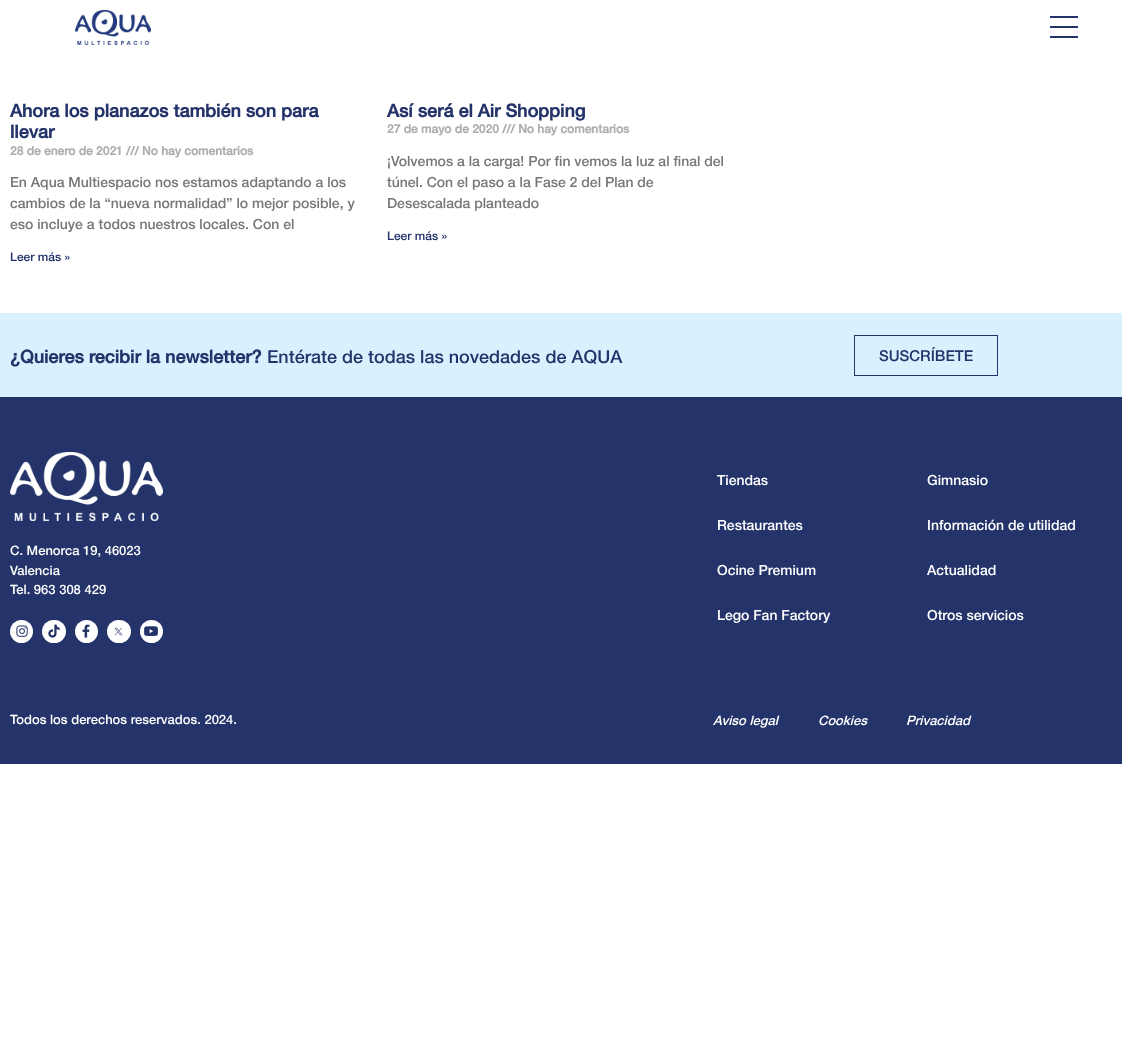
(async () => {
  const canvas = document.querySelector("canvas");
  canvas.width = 1122;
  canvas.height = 1041;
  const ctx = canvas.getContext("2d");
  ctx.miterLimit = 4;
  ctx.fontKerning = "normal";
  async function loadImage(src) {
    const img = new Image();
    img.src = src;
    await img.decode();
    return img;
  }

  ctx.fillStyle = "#ffffff";
  ctx.fillRect(0, 0, 1122, 1041);
  ctx.drawImage(await loadImage("img/1.png"), 75, 10, 76, 35);
  for (const [x, y, w, h, color] of [
    [1050, 26, 28, 2, "#243369"],
    [1050, 16, 28, 2, "#243369"],
    [1050, 36, 28, 2, "#243369"],
    [0, 313, 1122, 84, "#d9f1ff"],
  ]) {
    ctx.fillStyle = color;
    ctx.fillRect(x, y, w, h);
  }
  ctx.strokeStyle = "#243369";
  ctx.strokeRect(854.5, 335.5, 143, 40);
  ctx.fillStyle = "#243369";
  ctx.fillRect(0, 397, 1122, 367);
  ctx.drawImage(await loadImage("img/2.png"), 10, 452, 153, 69);
  ctx.fillStyle = "#ffffff";
  ctx.beginPath();
  ctx.arc(21.5, 631.5, 11.5, 0, Math.PI * 2);
  ctx.fill();
  ctx.drawImage(await loadImage("img/3.png"), 16, 625, 12, 12);
  ctx.beginPath();
  ctx.roundRect(42, 620, 24, 23, 11.5);
  ctx.fill();
  ctx.drawImage(await loadImage("img/4.png"), 48, 624, 12, 14);
  ctx.beginPath();
  ctx.arc(86.5, 631.5, 11.5, 0, Math.PI * 2);
  ctx.fill();
  ctx.drawImage(await loadImage("img/5.png"), 82, 624, 8, 14);
  ctx.beginPath();
  ctx.roundRect(107, 620, 24, 23, 11.5);
  ctx.fill();
  ctx.drawImage(await loadImage("img/6.png"), 114, 627, 9, 9);
  ctx.beginPath();
  ctx.arc(151.5, 631.5, 11.5, 0, Math.PI * 2);
  ctx.fill();
  ctx.drawImage(await loadImage("img/7.png"), 144, 626, 14, 10);
  ctx.font = "bold 18px Helvetica Neue";
  ctx.fillStyle = "#243369";
  ctx.fillText("Ahora los planazos también son para", 10, 117);
  ctx.fillText("llevar", 10, 138);
  ctx.font = "bold 12px Helvetica Neue";
  ctx.fillStyle = "#adadad";
  ctx.fillText("28 de enero de 2021 /// No hay comentarios", 10, 155);
  ctx.font = "500 14px Helvetica Neue";
  ctx.fillStyle = "#777777";
  for (const [text, x, y] of [
    ["En Aqua Multiespacio nos estamos adaptando a los", 10, 187],
    ["cambios de la “nueva normalidad” lo mejor posible, y", 10, 208],
    ["eso incluye a todos nuestros locales. Con el", 10, 229],
  ]) {
    ctx.fillText(text, x, y);
  }
  ctx.font = "500 12px Helvetica Neue";
  ctx.fillStyle = "#243369";
  ctx.fillText("Leer más »", 10, 261);
  ctx.font = "bold 18px Helvetica Neue";
  ctx.fillText("Así será el Air Shopping", 387, 117);
  ctx.font = "bold 12px Helvetica Neue";
  ctx.fillStyle = "#adadad";
  ctx.fillText("27 de mayo de 2020 /// No hay comentarios", 387, 133);
  ctx.font = "500 14px Helvetica Neue";
  ctx.fillStyle = "#777777";
  for (const [text, x, y] of [
    ["¡Volvemos a la carga! Por fin vemos la luz al final del", 387, 166],
    ["túnel. Con el paso a la Fase 2 del Plan de", 387, 187],
    ["Desescalada planteado", 387, 208],
  ]) {
    ctx.fillText(text, x, y);
  }
  ctx.font = "500 12px Helvetica Neue";
  ctx.fillStyle = "#243369";
  ctx.fillText("Leer más »", 387, 240);
  ctx.font = "bold 18px Helvetica Neue";
  ctx.fillText("¿Quieres recibir la newsletter?", 10, 363);
  ctx.font = "500 18px Helvetica Neue";
  ctx.fillText("Entérate de todas las novedades de AQUA", 267, 363);
  ctx.font = "500 15px Helvetica Neue";
  ctx.fillText("SUSCRÍBETE", 879, 361);
  ctx.font = "500 13px Helvetica Neue";
  ctx.fillStyle = "#ffffff";
  for (const [text, x, y] of [
    ["C. Menorca 19, 46023", 10, 555],
    ["Valencia", 10, 575],
    ["Tel. 963 308 429", 10, 594],
  ]) {
    ctx.fillText(text, x, y);
  }
  ctx.font = "500 14px Helvetica Neue";
  for (const [text, x, y] of [
    ["Tiendas", 717, 485],
    ["Restaurantes", 717, 530],
    ["Ocine Premium", 717, 575],
    ["Lego Fan Factory", 717, 620],
    ["Gimnasio", 927, 485],
    ["Información de utilidad", 927, 530],
    ["Actualidad", 927, 575],
    ["Otros servicios", 927, 620],
  ]) {
    ctx.fillText(text, x, y);
  }
  ctx.font = "500 13px Helvetica Neue";
  ctx.fillText("Todos los derechos reservados. 2024.", 10, 724);
  ctx.font = "italic 500 13px Helvetica Neue";
  for (const [text, x, y] of [
    ["Aviso legal", 713, 725],
    ["Cookies", 818, 725],
    ["Privacidad", 906, 725],
  ]) {
    ctx.fillText(text, x, y);
  }
})();
